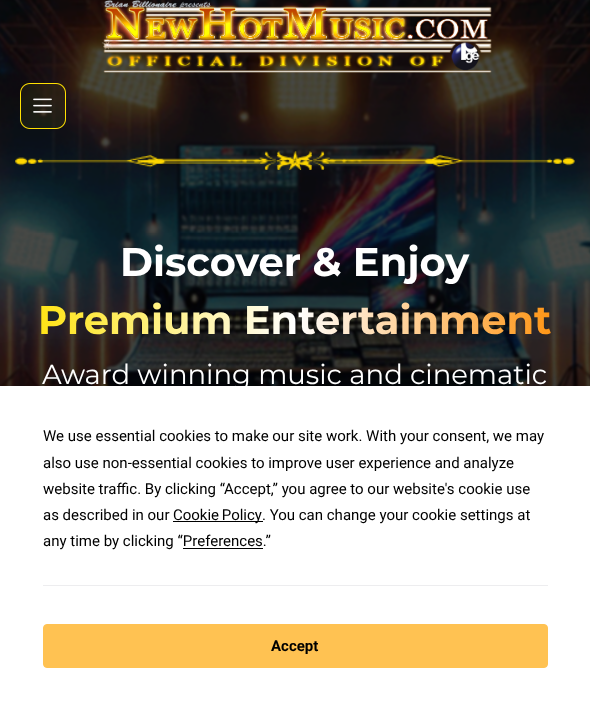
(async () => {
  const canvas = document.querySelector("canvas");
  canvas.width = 590;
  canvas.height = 704;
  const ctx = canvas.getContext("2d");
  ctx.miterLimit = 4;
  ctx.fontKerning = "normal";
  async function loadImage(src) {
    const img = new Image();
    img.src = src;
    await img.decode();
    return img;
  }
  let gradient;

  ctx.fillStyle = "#ffffff";
  ctx.fillRect(0, 0, 590, 704);
  ctx.drawImage(await loadImage("img/1.png"), 0, 0, 590, 386);
  ctx.drawImage(await loadImage("img/2.png"), 101, 0, 391, 73);
  ctx.drawImage(await loadImage("img/3.png"), 20, 83, 46, 46);
  ctx.drawImage(await loadImage("img/4.png"), 15, 151, 560, 19);
  ctx.fillStyle = "rgba(0, 0, 0, 0.25)";
  ctx.filter = "blur(22px)";
  ctx.beginPath();
  ctx.rect(0, 386, 590, 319);
  ctx.fill();
  ctx.filter = "none";
  for (const [x, y, w, h, color] of [
    [0, 386, 590, 318, "#ffffff"],
    [173, 521, 90, 1, "#000000"],
    [183, 548, 80, 1, "#000000"],
    [43, 585, 505, 1, "#ededef"],
  ]) {
    ctx.fillStyle = color;
    ctx.fillRect(x, y, w, h);
  }
  ctx.fillStyle = "#ffc252";
  ctx.beginPath();
  ctx.roundRect(43.5, 624.5, 504, 43, 3.5);
  ctx.fill();
  ctx.strokeStyle = "#ffc252";
  ctx.stroke();
  ctx.font = "bold 40px Montserrat";
  ctx.fillStyle = "#ffffff";
  ctx.fillText("Discover & Enjoy", 120, 276);
  gradient = ctx.createLinearGradient(15, 320, 575, 320);
  gradient.addColorStop(0, "#ffe100");
  gradient.addColorStop(0.5, "#ffffff");
  gradient.addColorStop(1, "#fe8c00");
  ctx.fillStyle = gradient;
  ctx.fillText("Premium Entertainment", 38, 334);
  ctx.font = "27.5px Montserrat";
  ctx.fillStyle = "#ffffff";
  ctx.fillText("Award winning music and cinematic", 42, 384);
  ctx.font = "15px Roboto";
  ctx.fillStyle = "#000000";
  for (const [text, x, y] of [
    ["We use essential cookies to make our site work. With your consent, we may", 43, 441],
    ["also use non-essential cookies to improve user experience and analyze", 43, 468],
    ["website traffic. By clicking “Accept,” you agree to our website's cookie use", 43, 494],
    ["as described in our", 43, 520],
  ]) {
    ctx.fillText(text, x, y);
  }
  ctx.wordSpacing = "-1px";
  ctx.fillText("Cookie Policy", 173, 520);
  ctx.wordSpacing = "0px";
  ctx.fillText(". You can change your cookie settings at", 262, 520);
  ctx.fillText("any time by clicking “Preferences.”", 43, 546);
  ctx.font = "bold 15px Roboto";
  ctx.fillText("Accept", 271, 651);
})();
